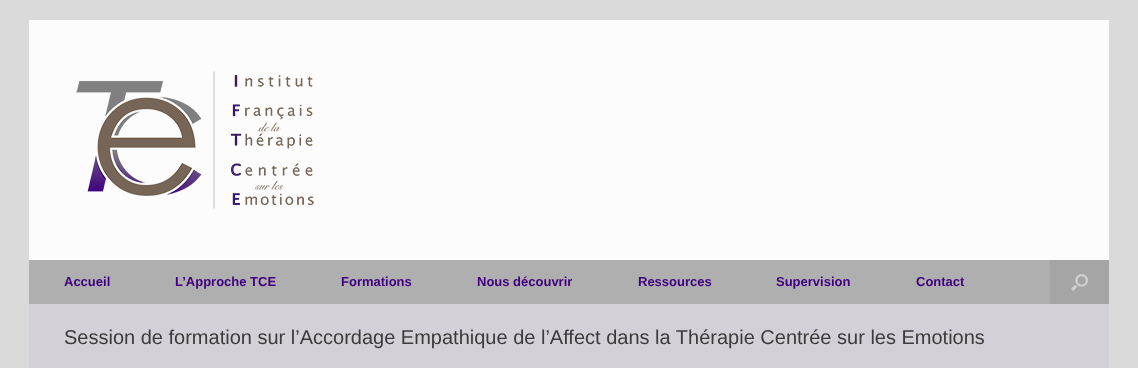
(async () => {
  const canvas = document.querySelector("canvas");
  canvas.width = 1138;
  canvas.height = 368;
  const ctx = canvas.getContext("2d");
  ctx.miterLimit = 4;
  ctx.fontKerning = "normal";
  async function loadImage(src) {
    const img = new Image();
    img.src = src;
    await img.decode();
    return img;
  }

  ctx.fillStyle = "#dadada";
  ctx.fillRect(0, 0, 1138, 368);
  ctx.fillStyle = "#fcfcfc";
  ctx.fillRect(29, 20, 1080, 240);
  ctx.drawImage(await loadImage("img/1.png"), 76, 71, 238, 138);
  ctx.fillStyle = "#afafaf";
  ctx.fillRect(29, 260, 1021, 44);
  ctx.fillStyle = "#a5a5a5";
  ctx.fillRect(1050, 260, 59, 44);
  ctx.drawImage(await loadImage("img/2.png"), 1071, 274, 17, 17);
  ctx.fillStyle = "#d4d0d8";
  ctx.fillRect(29, 304, 1080, 64);
  ctx.font = "bold 13px Liberation Sans";
  ctx.fillStyle = "#400080";
  for (const [text, x, y] of [
    ["Accueil", 64, 286],
    ["L’Approche TCE", 175, 286],
    ["Formations", 341, 286],
    ["Nous découvrir", 477, 286],
    ["Ressources", 638, 286],
    ["Supervision", 776, 286],
    ["Contact", 916, 286],
  ]) {
    ctx.fillText(text, x, y);
  }
  ctx.font = "20px Liberation Sans";
  ctx.fillStyle = "#3b3b3b";
  ctx.fillText("Session de formation sur l’Accordage Empathique de l’Affect dans la Thérapie Centrée sur les Emotions", 64, 344);
})();
